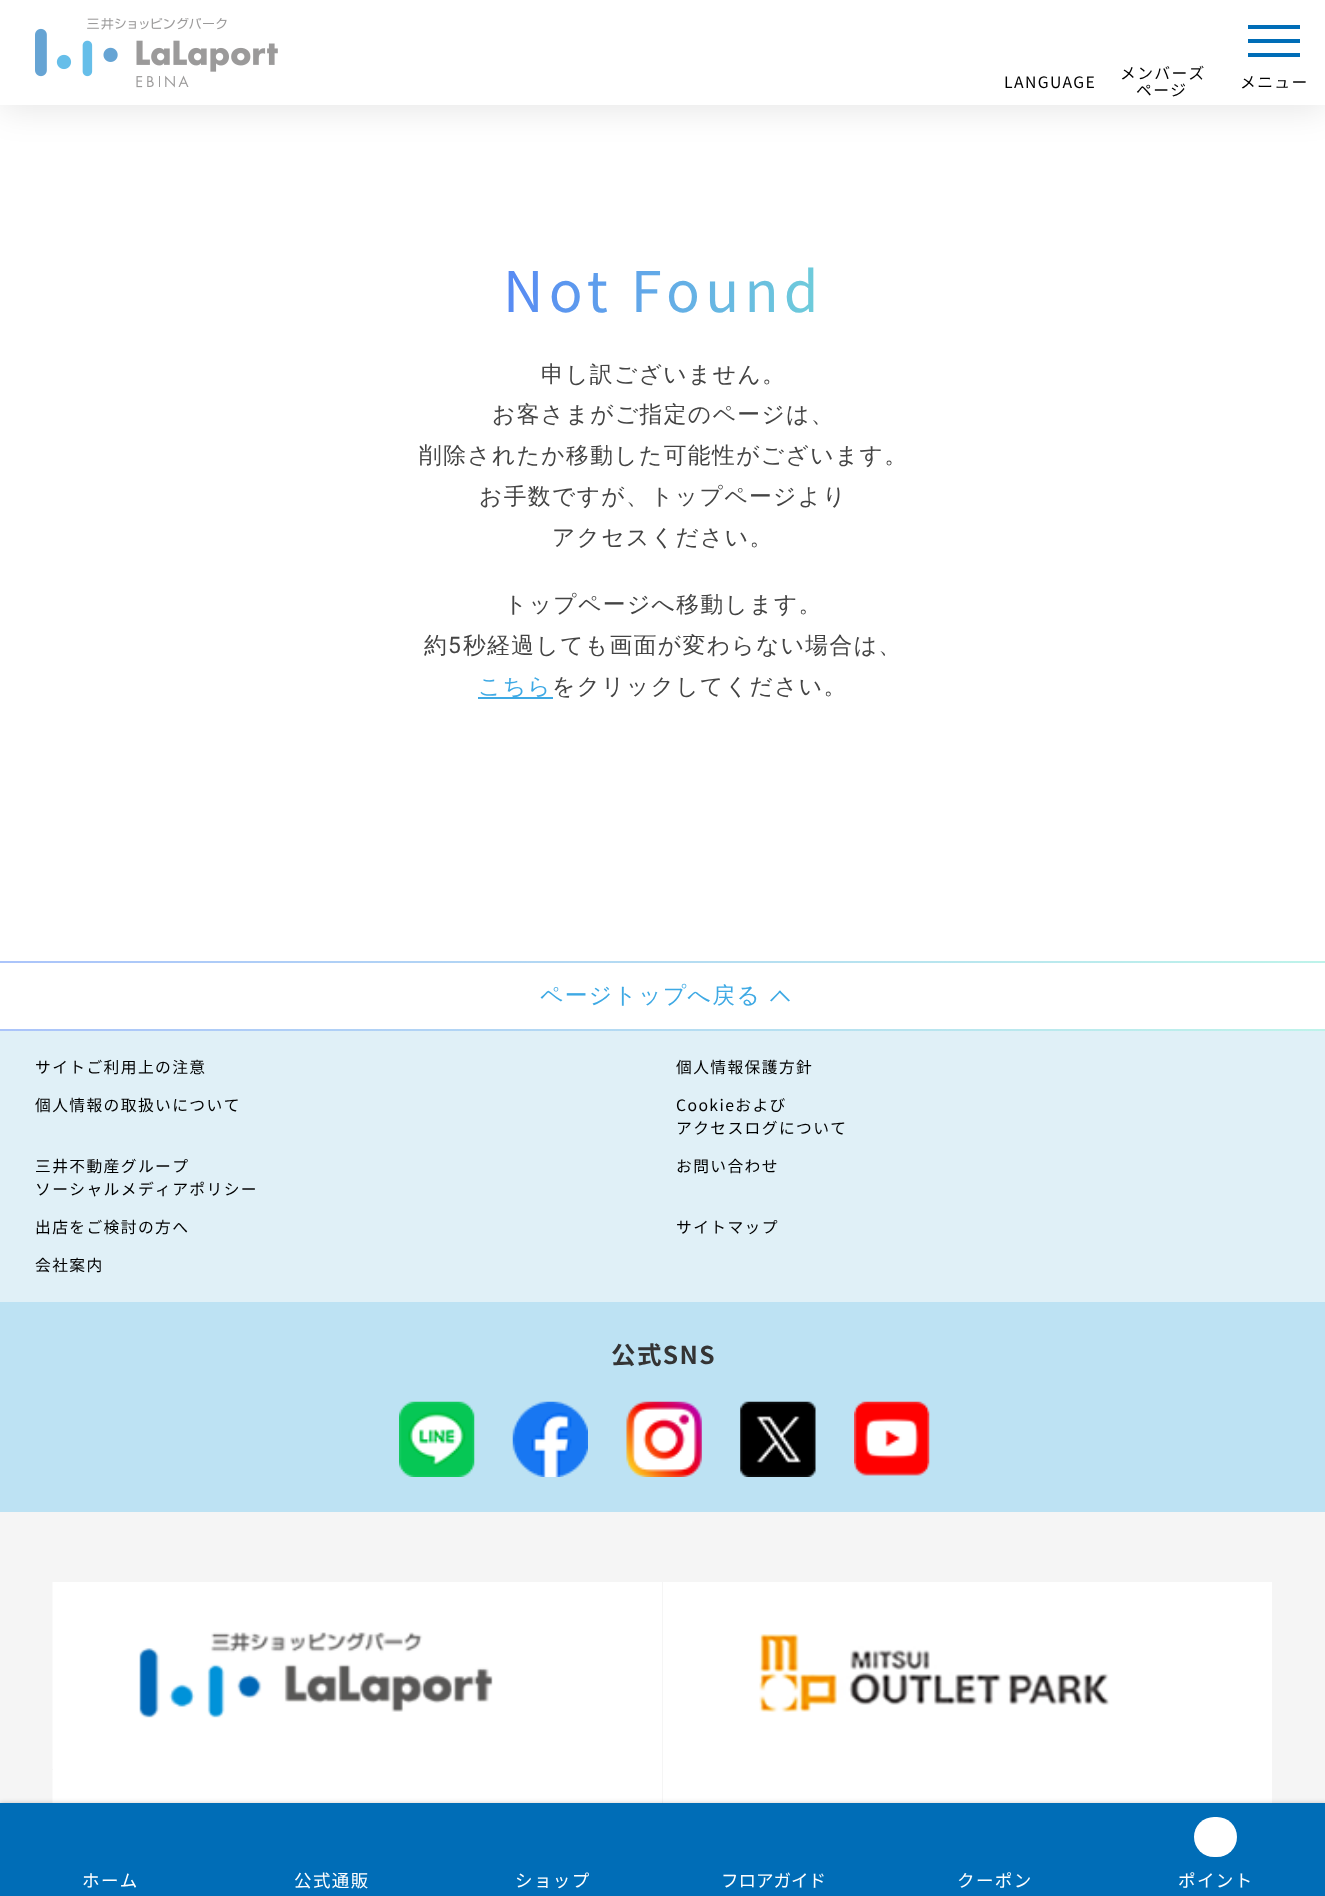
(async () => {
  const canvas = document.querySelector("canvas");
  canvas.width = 1325;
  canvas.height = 1896;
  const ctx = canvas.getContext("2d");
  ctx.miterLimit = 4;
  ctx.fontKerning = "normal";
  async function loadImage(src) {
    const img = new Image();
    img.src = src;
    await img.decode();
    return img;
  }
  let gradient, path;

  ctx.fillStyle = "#ffffff";
  ctx.fillRect(0, 0, 1325, 1896);
  ctx.fillStyle = "rgba(0, 0, 0, 0.1)";
  ctx.filter = "blur(17.5px)";
  ctx.beginPath();
  ctx.rect(0, 4, 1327, 105);
  ctx.fill();
  ctx.filter = "none";
  ctx.fillStyle = "#ffffff";
  ctx.fillRect(0, 0, 1325, 105);
  ctx.drawImage(await loadImage("img/1.png"), 35, 18, 243, 70);
  for (const [x, y, w, h, color] of [
    [1248, 25, 52, 4, "#006db7"],
    [1248, 39, 52, 4, "#006db7"],
    [1248, 53, 52, 4, "#006db7"],
    [478, 697, 75, 2, "#3ea9e4"],
    [0, 1512, 1325, 291, "#f5f5f5"],
    [53, 1582, 609, 221, "#ffffff"],
    [663, 1582, 609, 221, "#ffffff"],
  ]) {
    ctx.fillStyle = color;
    ctx.fillRect(x, y, w, h);
  }
  ctx.drawImage(await loadImage("img/9.png"), 52, 1770, 472, 33);
  ctx.fillStyle = "rgba(0, 0, 0, 0.2)";
  ctx.filter = "blur(2.5px)";
  ctx.beginPath();
  ctx.rect(0, 1803, 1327, 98);
  ctx.fill();
  ctx.filter = "none";
  ctx.fillStyle = "#006db7";
  ctx.fillRect(0, 1803, 1325, 93);
  ctx.fillStyle = "#ffffff";
  ctx.beginPath();
  ctx.roundRect(1194, 1817, 43, 40, 20);
  ctx.fill();
  gradient = ctx.createLinearGradient(0, 962, 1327, 962);
  gradient.addColorStop(0, "#abc4fa");
  gradient.addColorStop(1, "#bef3ea");
  ctx.fillStyle = gradient;
  ctx.fillRect(0, 961, 1325, 2);
  ctx.fillStyle = "#3ea9e4";
  path = new Path2D("M770 1000.5L780 990.5L781 991.5L771.5 1001.5Z");
  ctx.fill(path);
  path = new Path2D("M778.5 991.5L780 990.5L790 1000.5L788.5 1001.5Z");
  ctx.fill(path);
  gradient = ctx.createLinearGradient(0, 1030, 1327, 1030);
  gradient.addColorStop(0, "#abc4fa");
  gradient.addColorStop(1, "#bef3ea");
  ctx.fillStyle = gradient;
  ctx.fillRect(0, 1029, 1325, 2);
  ctx.fillStyle = "#e0f0f7";
  ctx.fillRect(0, 1031, 1325, 271);
  ctx.fillStyle = "#bde2f3";
  ctx.fillRect(0, 1302, 1325, 210);
  ctx.drawImage(await loadImage("img/2.png"), 399, 1401, 76, 76);
  ctx.drawImage(await loadImage("img/3.png"), 512, 1401, 76, 76);
  ctx.drawImage(await loadImage("img/4.png"), 626, 1401, 76, 76);
  ctx.drawImage(await loadImage("img/5.png"), 740, 1401, 76, 76);
  ctx.drawImage(await loadImage("img/6.png"), 854, 1401, 76, 75);
  ctx.drawImage(await loadImage("img/7.png"), 52, 1582, 441, 187);
  ctx.drawImage(await loadImage("img/8.png"), 759, 1634, 351, 79);
  ctx.letterSpacing = "1.4px";
  ctx.font = "15.75px Noto Sans JP";
  ctx.fillStyle = "#000000";
  for (const [text, x, y] of [
    ["LANGUAGE", 1004, 88],
    ["メンバーズ", 1120, 79],
    ["ページ", 1136, 96],
    ["メニュー", 1240, 88],
  ]) {
    ctx.fillText(text, x, y);
  }
  ctx.letterSpacing = "5.25px";
  ctx.font = "56px Noto Sans JP";
  gradient = ctx.createLinearGradient(501, 276, 826, 298);
  gradient.addColorStop(0, "#5789f4");
  gradient.addColorStop(1, "#6fceda");
  ctx.fillStyle = gradient;
  ctx.fillText("Not Found", 503, 312);
  ctx.letterSpacing = "1.4px";
  ctx.font = "500 22.75px WenQuanYi Zen Hei";
  ctx.fillStyle = "#444444";
  for (const [text, x, y] of [
    ["申し訳ございません。", 541, 382],
    ["お客さまがご指定のページは、", 492, 422],
    ["削除されたか移動した可能性がございます。", 419, 463],
    ["お手数ですが、トップページより", 479, 504],
    ["アクセスください。", 552, 545],
    ["トップページへ移動します。", 504, 612],
    ["約", 424, 653],
  ]) {
    ctx.fillText(text, x, y);
  }
  ctx.font = "22.75px Roboto";
  ctx.fillText("5", 448, 653);
  ctx.font = "500 22.75px WenQuanYi Zen Hei";
  ctx.fillText("秒経過しても画面が変わらない場合は、", 463, 653);
  ctx.fillStyle = "#3ea9e4";
  ctx.fillText("こちら", 478, 694);
  ctx.fillStyle = "#444444";
  ctx.fillText("をクリックしてください。", 552, 694);
  ctx.font = "17.5px Noto Sans JP";
  ctx.fillStyle = "#ffffff";
  for (const [text, x, y] of [
    ["ホーム", 82, 1887],
    ["公式通販", 294, 1887],
    ["ショップ", 515, 1887],
  ]) {
    ctx.fillText(text, x, y);
  }
  ctx.letterSpacing = "0px";
  ctx.fillText("フロアガイド", 721, 1887);
  ctx.letterSpacing = "1.4px";
  ctx.fillText("クーポン", 957, 1887);
  ctx.fillText("ポイント", 1178, 1887);
  ctx.font = "500 22.75px WenQuanYi Zen Hei";
  ctx.fillStyle = "#3ea9e4";
  ctx.fillText("ページトップへ戻る", 540, 1003);
  ctx.font = "15.75px Noto Sans JP";
  ctx.fillStyle = "#000000";
  for (const [text, x, y] of [
    ["サイトご利用上の注意", 35, 1073],
    ["個人情報保護方針", 676, 1073],
    ["個人情報の取扱いについて", 35, 1111],
    ["Cookieおよび", 676, 1111],
    ["アクセスログについて", 676, 1134],
    ["三井不動産グループ", 35, 1172],
    ["ソーシャルメディアポリシー", 35, 1195],
    ["お問い合わせ", 676, 1172],
    ["出店をご検討の方へ", 35, 1233],
    ["サイトマップ", 676, 1233],
    ["会社案内", 35, 1271],
  ]) {
    ctx.fillText(text, x, y);
  }
  ctx.font = "bold 24.5px Noto Sans JP";
  ctx.fillStyle = "#343434";
  ctx.fillText("公式SNS", 611, 1364);
})();
